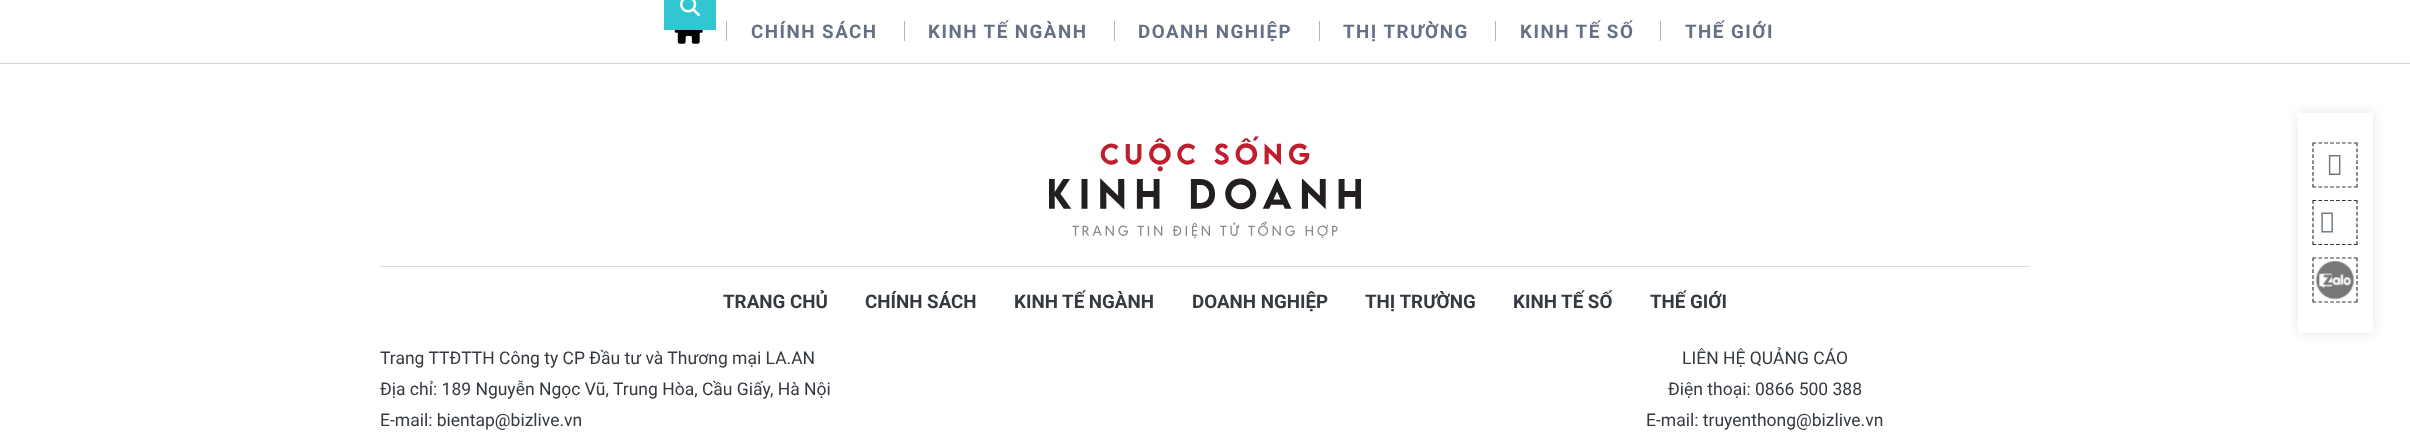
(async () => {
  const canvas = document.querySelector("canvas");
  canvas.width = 2410;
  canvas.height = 445;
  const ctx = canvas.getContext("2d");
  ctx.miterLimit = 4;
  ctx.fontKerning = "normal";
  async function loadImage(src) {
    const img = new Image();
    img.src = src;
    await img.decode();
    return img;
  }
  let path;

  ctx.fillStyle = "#ffffff";
  ctx.fillRect(0, 0, 2410, 445);
  ctx.fillStyle = "#d5d5d5";
  ctx.fillRect(0, 63, 2410, 1);
  ctx.drawImage(await loadImage("img/1.png"), 674, 30, 29, 14);
  for (const [x, y, w, h, color] of [
    [726, 21, 1, 20, "#b5b6b8"],
    [904, 21, 1, 20, "#b5b6b8"],
    [1114, 21, 1, 20, "#b5b6b8"],
    [1319, 21, 1, 20, "#b5b6b8"],
    [1495, 21, 1, 20, "#b5b6b8"],
    [1660, 21, 1, 20, "#b5b6b8"],
    [664, 0, 52, 30, "#32c5d2"],
  ]) {
    ctx.fillStyle = color;
    ctx.fillRect(x, y, w, h);
  }
  ctx.drawImage(await loadImage("img/2.png"), 680, 0, 20, 17);
  ctx.drawImage(await loadImage("img/3.png"), 1049, 136, 312, 103);
  ctx.fillStyle = "#dddddd";
  ctx.fillRect(380, 266, 1650, 1);
  ctx.fillStyle = "rgba(0, 0, 0, 0.1)";
  ctx.filter = "blur(6px)";
  ctx.beginPath();
  ctx.rect(2298, 113, 75, 220);
  ctx.fill();
  ctx.filter = "none";
  ctx.fillStyle = "#ffffff";
  ctx.fillRect(2298, 113, 75, 220);
  path = new Path2D("M2312.5 143H2357.5M2357 142.5V187.5M2312.5 187H2357.5M2313 142.5V187.5");
  ctx.strokeStyle = "#343a40";
  ctx.lineWidth = 1.2;
  ctx.setLineDash([3.75, 2.14]);
  ctx.stroke(path);
  ctx.drawImage(await loadImage("img/4.png"), 2328, 155, 13, 20);
  path = new Path2D("M2312.5 200.5H2357.5M2357 200V245M2312.5 244.5H2357.5M2313 200V245");
  ctx.stroke(path);
  ctx.drawImage(await loadImage("img/5.png"), 2321, 212, 12, 21);
  path = new Path2D("M2312.5 258H2357.5M2357 257.5V302.5M2312.5 302H2357.5M2313 257.5V302.5");
  ctx.stroke(path);
  ctx.drawImage(await loadImage("img/6.png"), 2316, 261, 39, 39);
  ctx.letterSpacing = "1.5px";
  ctx.font = "bold 18.75px Roboto";
  ctx.fillStyle = "#667085";
  for (const [text, x, y] of [
    ["CHÍNH SÁCH", 751, 38],
    ["KINH TẾ NGÀNH", 928, 38],
    ["DOANH NGHIỆP", 1138, 38],
    ["THỊ TRƯỜNG", 1343, 38],
    ["KINH TẾ SỐ", 1520, 38],
    ["THẾ GIỚI", 1685, 38],
  ]) {
    ctx.fillText(text, x, y);
  }
  ctx.letterSpacing = "0px";
  ctx.fillStyle = "#343a40";
  for (const [text, x, y] of [
    ["TRANG CHỦ", 723, 308],
    ["CHÍNH SÁCH", 865, 308],
    ["KINH TẾ NGÀNH", 1014, 308],
    ["DOANH NGHIỆP", 1192, 308],
    ["THỊ TRƯỜNG", 1365, 308],
    ["KINH TẾ SỐ", 1513, 308],
    ["THẾ GIỚI", 1650, 308],
  ]) {
    ctx.fillText(text, x, y);
  }
  ctx.font = "17.5px Roboto";
  for (const [text, x, y] of [
    ["Trang TTĐTTH Công ty CP Đầu tư và Thương mại LA.AN", 380, 364],
    ["Địa chỉ: 189 Nguyễn Ngọc Vũ, Trung Hòa, Cầu Giấy, Hà Nội", 380, 395],
    ["E-mail: bientap@bizlive.vn", 380, 426],
    ["LIÊN HỆ QUẢNG CÁO", 1682, 364],
    ["Điện thoại: 0866 500 388", 1668, 395],
    ["E-mail: truyenthong@bizlive.vn", 1646, 426],
  ]) {
    ctx.fillText(text, x, y);
  }
})();
